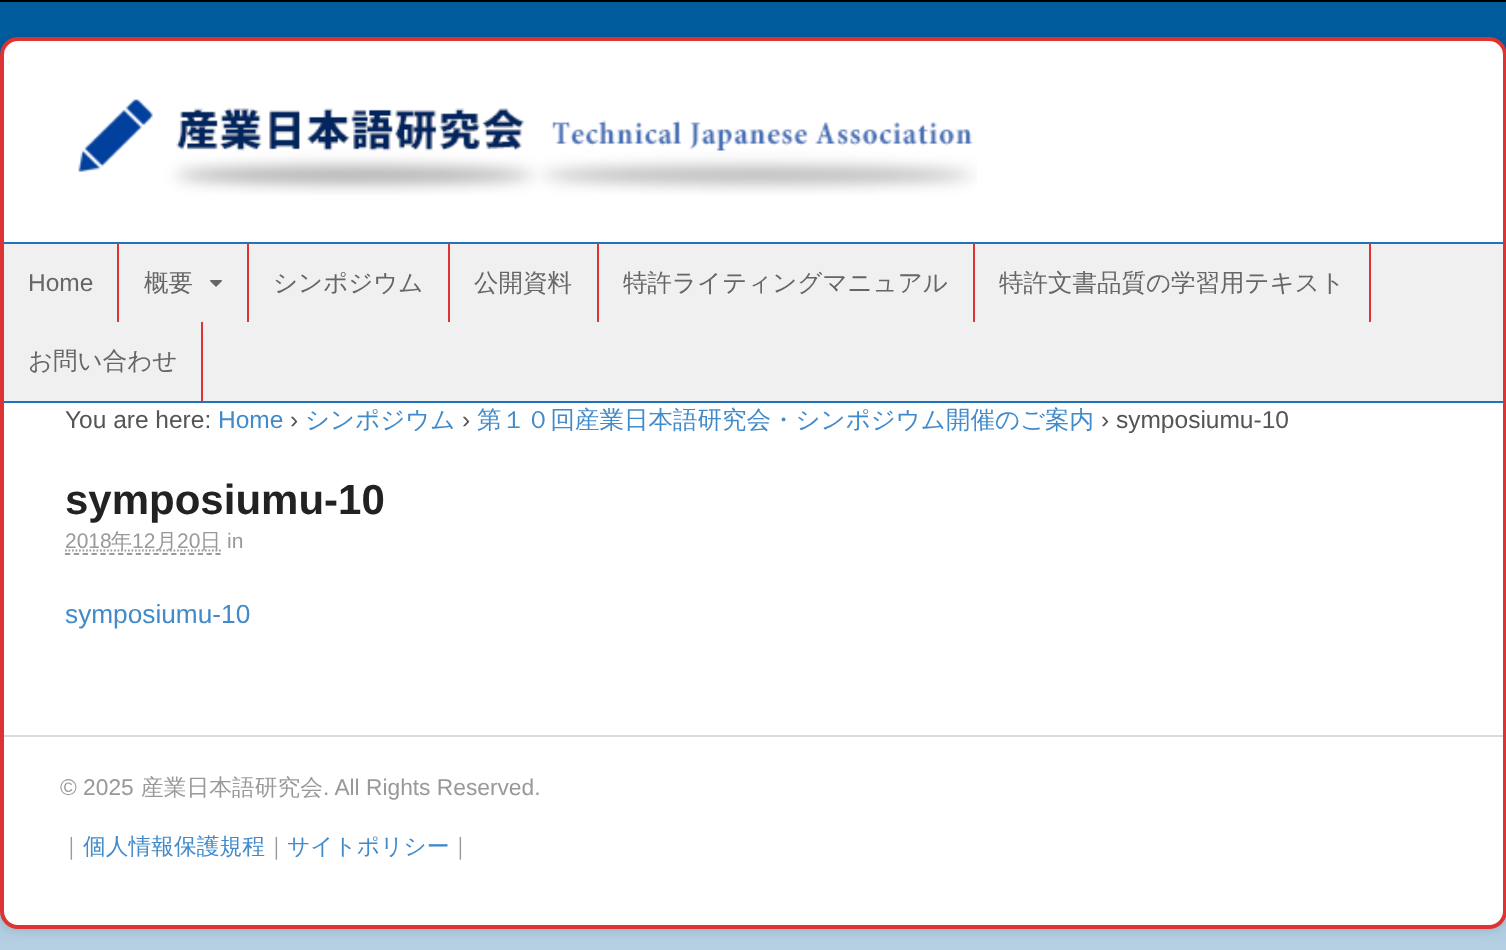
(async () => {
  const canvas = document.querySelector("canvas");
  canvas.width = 1506;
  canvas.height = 950;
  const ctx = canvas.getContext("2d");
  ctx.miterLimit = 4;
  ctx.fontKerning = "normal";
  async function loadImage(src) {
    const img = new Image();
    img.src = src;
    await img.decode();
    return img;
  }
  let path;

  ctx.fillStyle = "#005c9d";
  ctx.fillRect(0, 0, 1506, 950);
  ctx.drawImage(await loadImage("img/1.png"), 0, 49, 1506, 901);
  ctx.fillStyle = "#000000";
  ctx.fillRect(0, 0, 1506, 2);
  ctx.fillStyle = "rgba(0, 0, 0, 0.1)";
  ctx.filter = "blur(4.5px)";
  ctx.beginPath();
  ctx.roundRect(0, 39, 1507, 892, 18);
  ctx.fill();
  ctx.filter = "none";
  ctx.fillStyle = "#ffffff";
  ctx.beginPath();
  ctx.roundRect(2, 39, 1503, 888, 16);
  ctx.fill();
  ctx.strokeStyle = "#dd3333";
  ctx.lineWidth = 4;
  ctx.stroke();
  ctx.drawImage(await loadImage("img/2.png"), 78, 99, 899, 96);
  for (const [x, y, w, h, color] of [
    [4, 244, 1499, 157, "#f0f0f0"],
    [4, 242, 1499, 2, "#1e73be"],
    [4, 401, 1499, 2, "#1e73be"],
    [117, 243, 2, 79, "#dd3333"],
    [247, 243, 2, 79, "#dd3333"],
  ]) {
    ctx.fillStyle = color;
    ctx.fillRect(x, y, w, h);
  }
  ctx.drawImage(await loadImage("img/3.png"), 210, 280, 12, 7);
  for (const [x, y, w, h, color] of [
    [448, 243, 2, 79, "#dd3333"],
    [597, 243, 2, 79, "#dd3333"],
    [973, 243, 2, 79, "#dd3333"],
    [1369, 243, 2, 79, "#dd3333"],
    [201, 322, 2, 79, "#dd3333"],
  ]) {
    ctx.fillStyle = color;
    ctx.fillRect(x, y, w, h);
  }
  path = new Path2D("M65 554H220.5");
  ctx.strokeStyle = "#999999";
  ctx.lineWidth = 1.8;
  ctx.setLineDash([5.25, 3.6]);
  ctx.stroke(path);
  path = new Path2D("M65 550.5H221");
  ctx.setLineDash([1.75, 1.75]);
  ctx.stroke(path);
  ctx.fillStyle = "#dbdbdb";
  ctx.fillRect(4, 735, 1499, 2);
  ctx.font = "24.5px Liberation Sans";
  ctx.fillStyle = "#666666";
  ctx.fillText("Home", 28, 291);
  ctx.font = "500 24.5px WenQuanYi Zen Hei";
  for (const [text, x, y] of [
    ["概要", 144, 291],
    ["シンポジウム", 273, 291],
    ["公開資料", 474, 291],
    ["特許ライティングマニュアル", 623, 291],
    ["特許文書品質の学習用テキスト", 999, 291],
    ["お問い合わせ", 28, 369],
  ]) {
    ctx.fillText(text, x, y);
  }
  ctx.font = "24.5px Liberation Sans";
  ctx.fillStyle = "#555555";
  ctx.fillText("You are here:", 65, 428);
  ctx.fillStyle = "#428bca";
  ctx.fillText("Home", 218, 428);
  ctx.fillStyle = "#555555";
  ctx.fillText("›", 290, 428);
  ctx.font = "500 24.5px WenQuanYi Zen Hei";
  ctx.fillStyle = "#428bca";
  ctx.fillText("シンポジウム", 305, 428);
  ctx.font = "24.5px Liberation Sans";
  ctx.fillStyle = "#555555";
  ctx.fillText("›", 462, 428);
  ctx.font = "500 24.5px WenQuanYi Zen Hei";
  ctx.fillStyle = "#428bca";
  ctx.fillText("第１０回産業日本語研究会・シンポジウム開催のご案内", 477, 428);
  ctx.font = "24.5px Liberation Sans";
  ctx.fillStyle = "#555555";
  ctx.fillText("› symposiumu-10", 1101, 428);
  ctx.font = "bold 42px Liberation Sans";
  ctx.fillStyle = "#222222";
  ctx.fillText("symposiumu-10", 65, 514);
  ctx.font = "21px Liberation Sans";
  ctx.fillStyle = "#999999";
  ctx.fillText("2018", 65, 548);
  ctx.font = "500 21px WenQuanYi Zen Hei";
  ctx.fillText("年", 111, 548);
  ctx.font = "21px Liberation Sans";
  ctx.fillText("12", 132, 548);
  ctx.font = "500 21px WenQuanYi Zen Hei";
  ctx.fillText("月", 156, 548);
  ctx.font = "21px Liberation Sans";
  ctx.fillText("20", 177, 548);
  ctx.font = "500 21px WenQuanYi Zen Hei";
  ctx.fillText("日", 200, 548);
  ctx.font = "21px Liberation Sans";
  ctx.fillText("in", 227, 548);
  ctx.font = "26.25px Liberation Sans";
  ctx.fillStyle = "#428bca";
  ctx.fillText("symposiumu-10", 65, 623);
  ctx.font = "22.75px Liberation Sans";
  ctx.fillStyle = "#999999";
  ctx.fillText("© 2025", 60, 795);
  ctx.font = "500 22.75px WenQuanYi Zen Hei";
  ctx.fillText("産業日本語研究会", 141, 795);
  ctx.font = "22.75px Liberation Sans";
  ctx.fillText(". All Rights Reserved.", 323, 795);
  ctx.font = "500 22.75px WenQuanYi Zen Hei";
  ctx.fillText("｜", 60, 854);
  ctx.fillStyle = "#428bca";
  ctx.fillText("個人情報保護規程", 83, 854);
  ctx.fillStyle = "#999999";
  ctx.fillText("｜", 265, 854);
  ctx.fillStyle = "#428bca";
  ctx.fillText("サイトポリシー", 287, 854);
  ctx.fillStyle = "#999999";
  ctx.fillText("｜", 449, 854);
})();
